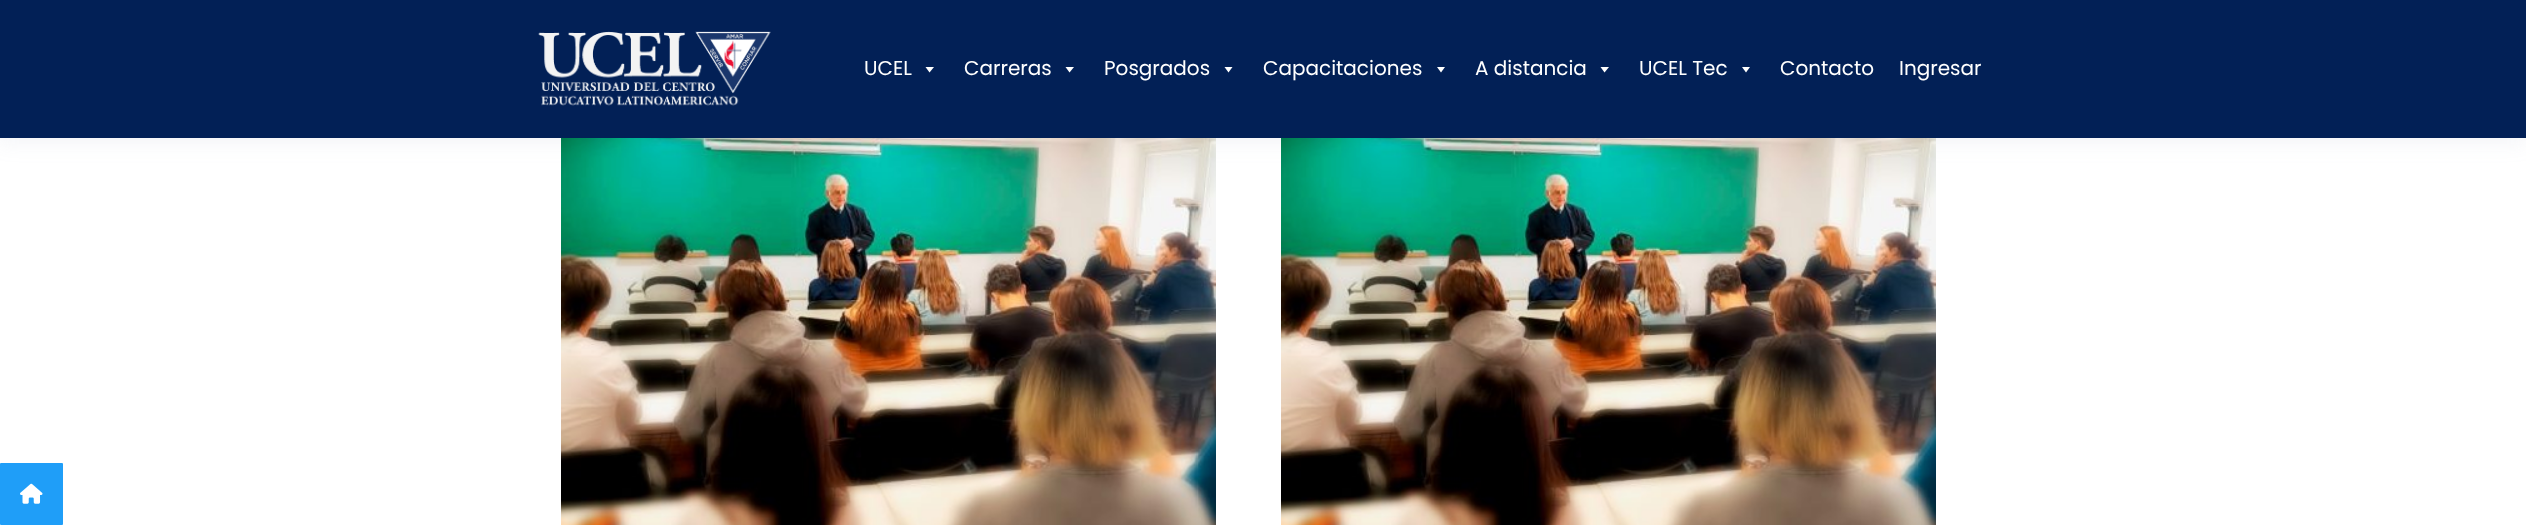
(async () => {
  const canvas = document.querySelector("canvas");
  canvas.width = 2526;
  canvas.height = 525;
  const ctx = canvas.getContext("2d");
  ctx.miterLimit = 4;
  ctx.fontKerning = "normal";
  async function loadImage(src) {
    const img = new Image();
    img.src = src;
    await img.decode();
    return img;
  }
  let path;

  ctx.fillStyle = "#ffffff";
  ctx.fillRect(0, 0, 2526, 525);
  ctx.fillStyle = "rgba(146, 153, 184, 0.1)";
  ctx.filter = "blur(9.5px)";
  ctx.beginPath();
  ctx.rect(0, 6, 2526, 138);
  ctx.fill();
  ctx.filter = "none";
  ctx.fillStyle = "#022056";
  ctx.fillRect(0, 0, 2526, 138);
  ctx.drawImage(await loadImage("img/1.png"), 538, 31, 233, 75);
  ctx.fillStyle = "#ffffff";
  path = new Path2D("M934 67L929.5 72.5L925.5 67Z");
  ctx.fill(path);
  path = new Path2D("M1074 67L1069.5 72.5L1065.5 67Z");
  ctx.fill(path);
  path = new Path2D("M1232.5 67L1228.5 72.5L1224.5 67Z");
  ctx.fill(path);
  path = new Path2D("M1445 67L1441 72.5L1437 67Z");
  ctx.fill(path);
  path = new Path2D("M1609 67L1604.5 72.5L1600.5 67Z");
  ctx.fill(path);
  path = new Path2D("M1750 67L1746 72.5L1742 67Z");
  ctx.fill(path);
  ctx.drawImage(await loadImage("img/2.png"), 561, 138, 655, 387);
  ctx.drawImage(await loadImage("img/3.png"), 1281, 138, 655, 387);
  ctx.fillStyle = "#1f9ef8";
  ctx.beginPath();
  ctx.roundRect(0, 463, 63, 62, 1);
  ctx.fill();
  ctx.drawImage(await loadImage("img/4.png"), 20, 483, 23, 21);
  ctx.font = "20px Poppins";
  ctx.fillStyle = "#ffffff";
  for (const [text, x, y] of [
    ["UCEL", 864, 75],
    ["Carreras", 964, 75],
    ["Posgrados", 1104, 75],
    ["Capacitaciones", 1263, 75],
    ["A distancia", 1475, 75],
    ["UCEL Tec", 1639, 75],
    ["Contacto", 1780, 75],
    ["Ingresar", 1899, 75],
  ]) {
    ctx.fillText(text, x, y);
  }
})();
